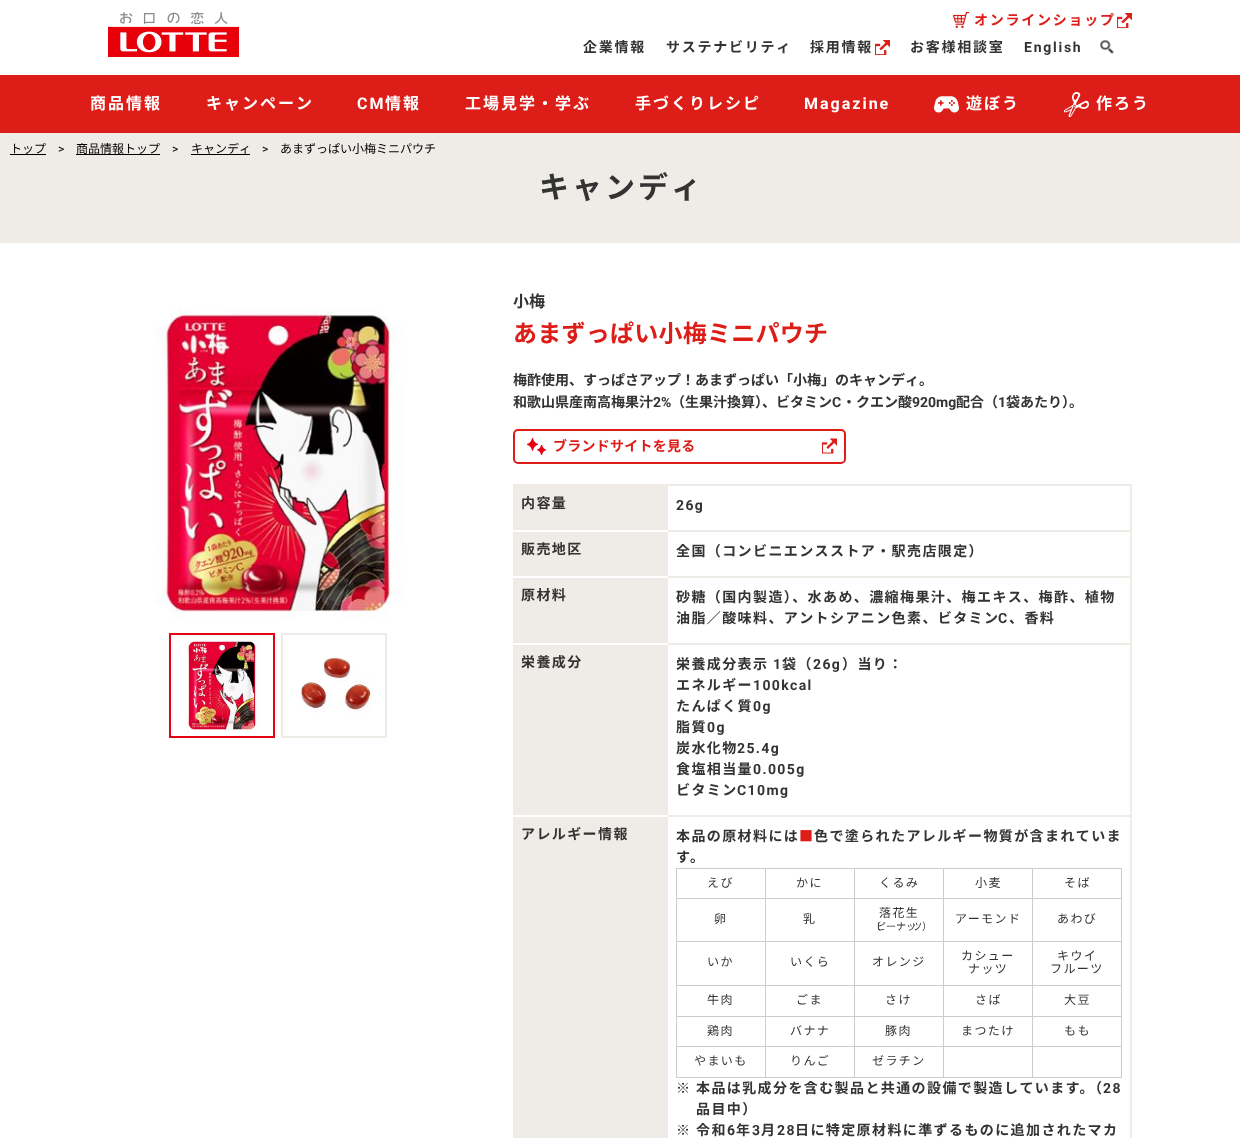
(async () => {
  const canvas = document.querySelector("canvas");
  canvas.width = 1240;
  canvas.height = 1138;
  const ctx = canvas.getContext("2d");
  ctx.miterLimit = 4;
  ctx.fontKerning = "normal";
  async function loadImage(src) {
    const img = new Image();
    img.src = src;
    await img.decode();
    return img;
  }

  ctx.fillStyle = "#ffffff";
  ctx.fillRect(0, 0, 1240, 1138);
  ctx.drawImage(await loadImage("img/1.png"), 108, 12, 131, 45);
  ctx.drawImage(await loadImage("img/2.png"), 953, 12, 16, 16);
  ctx.drawImage(await loadImage("img/3.png"), 1117, 13, 15, 15);
  ctx.drawImage(await loadImage("img/4.png"), 875, 40, 15, 15);
  ctx.drawImage(await loadImage("img/5.png"), 1100, 40, 14, 14);
  ctx.fillStyle = "#dd1d18";
  ctx.fillRect(0, 75, 1240, 58);
  ctx.drawImage(await loadImage("img/6.png"), 934, 96, 25, 17);
  ctx.drawImage(await loadImage("img/7.png"), 1064, 92, 25, 25);
  for (const [x, y, w, h, color] of [
    [0, 133, 1240, 110, "#efece7"],
    [10, 154, 36, 1, "#000000"],
    [76, 154, 84, 1, "#000000"],
    [191, 154, 59, 1, "#000000"],
  ]) {
    ctx.fillStyle = color;
    ctx.fillRect(x, y, w, h);
  }
  ctx.drawImage(await loadImage("img/8.png"), 154, 308, 249, 312);
  ctx.strokeStyle = "#e60213";
  ctx.lineWidth = 2;
  ctx.strokeRect(170, 634, 104, 103);
  ctx.drawImage(await loadImage("img/9.png"), 185, 639, 74, 93);
  ctx.strokeStyle = "#efece7";
  ctx.strokeRect(282, 634, 104, 103);
  ctx.drawImage(await loadImage("img/10.png"), 300, 657, 72, 56);
  ctx.beginPath();
  ctx.roundRect(514, 430, 331, 33, 4);
  ctx.strokeStyle = "#dd1d18";
  ctx.stroke();
  ctx.drawImage(await loadImage("img/11.png"), 527, 438, 19, 17);
  ctx.drawImage(await loadImage("img/12.png"), 822, 438, 15, 16);
  for (const [x, y, w, h, color] of [
    [513, 484, 619, 2, "#efece7"],
    [513, 486, 155, 44, "#efece7"],
    [1130, 486, 2, 652, "#efece7"],
    [668, 530, 464, 2, "#efece7"],
    [513, 532, 155, 44, "#efece7"],
    [668, 576, 464, 2, "#efece7"],
    [513, 578, 155, 65, "#efece7"],
    [668, 643, 464, 2, "#efece7"],
    [513, 645, 155, 170, "#efece7"],
    [668, 815, 464, 2, "#efece7"],
    [513, 817, 155, 321, "#efece7"],
    [676, 868, 446, 1, "#cccccc"],
    [676, 868, 1, 210, "#cccccc"],
    [765, 869, 1, 209, "#cccccc"],
    [677, 898, 89, 1, "#cccccc"],
    [854, 869, 1, 209, "#cccccc"],
    [766, 898, 89, 1, "#cccccc"],
    [943, 869, 1, 209, "#cccccc"],
    [855, 898, 89, 1, "#cccccc"],
    [1032, 869, 1, 209, "#cccccc"],
    [944, 898, 89, 1, "#cccccc"],
    [1121, 869, 1, 178, "#cccccc"],
    [1033, 898, 89, 1, "#cccccc"],
    [677, 941, 445, 1, "#cccccc"],
    [677, 985, 445, 1, "#cccccc"],
    [677, 1016, 445, 1, "#cccccc"],
    [677, 1046, 445, 1, "#cccccc"],
    [677, 1077, 356, 1, "#cccccc"],
    [1121, 1047, 1, 31, "#cccccc"],
    [1033, 1077, 89, 1, "#cccccc"],
  ]) {
    ctx.fillStyle = color;
    ctx.fillRect(x, y, w, h);
  }
  ctx.letterSpacing = "1.75px";
  ctx.font = "bold 14px Noto Sans JP";
  ctx.fillStyle = "#dd1d18";
  ctx.fillText("オンラインショップ", 974, 25);
  ctx.fillStyle = "#333333";
  for (const [text, x, y] of [
    ["企業情報", 583, 52],
    ["サステナビリティ", 666, 52],
    ["採用情報", 810, 52],
    ["お客様相談室", 910, 52],
  ]) {
    ctx.fillText(text, x, y);
  }
  ctx.font = "bold 14px Roboto";
  ctx.fillText("English", 1024, 52);
  ctx.letterSpacing = "2px";
  ctx.font = "bold 16px Noto Sans JP";
  ctx.fillStyle = "#ffffff";
  ctx.fillText("商品情報", 90, 109);
  ctx.fillText("キャンペーン", 206, 109);
  ctx.font = "bold 16px Roboto";
  ctx.fillText("CM", 357, 109);
  ctx.font = "bold 16px Noto Sans JP";
  for (const [text, x, y] of [
    ["情報", 385, 109],
    ["工場見学・学ぶ", 465, 109],
    ["手づくりレシピ", 635, 109],
  ]) {
    ctx.fillText(text, x, y);
  }
  ctx.font = "bold 16px Roboto";
  ctx.fillText("Magazine", 804, 109);
  ctx.font = "bold 16px Noto Sans JP";
  ctx.fillText("遊ぼう", 966, 109);
  ctx.fillText("作ろう", 1096, 109);
  ctx.letterSpacing = "0px";
  ctx.font = "12px Noto Sans JP";
  ctx.fillStyle = "#000000";
  ctx.fillText("トップ", 10, 153);
  ctx.font = "12px Roboto";
  ctx.fillText(">", 58, 153);
  ctx.font = "12px Noto Sans JP";
  ctx.fillText("商品情報トップ", 76, 153);
  ctx.font = "12px Roboto";
  ctx.fillText(">", 172, 153);
  ctx.font = "12px Noto Sans JP";
  ctx.fillText("キャンディ", 191, 153);
  ctx.font = "12px Roboto";
  ctx.fillText(">", 262, 153);
  ctx.font = "12px Noto Sans JP";
  ctx.fillText("あまずっぱい小梅ミニパウチ", 280, 153);
  ctx.letterSpacing = "3px";
  ctx.font = "bold 30px Noto Sans JP";
  ctx.fillStyle = "#333333";
  ctx.fillText("キャンディ", 539, 198);
  ctx.letterSpacing = "0px";
  ctx.font = "bold 16px Noto Sans JP";
  ctx.fillText("小梅", 513, 307);
  ctx.letterSpacing = "0.25px";
  ctx.font = "bold 24px Noto Sans JP";
  ctx.fillStyle = "#dd1d18";
  ctx.fillText("あまずっぱい小梅ミニパウチ", 513, 342);
  ctx.letterSpacing = "0px";
  ctx.font = "bold 14px Noto Sans JP";
  ctx.fillStyle = "#333333";
  ctx.fillText("梅酢使用、すっぱさアップ！あまずっぱい「小梅」のキャンディ。", 513, 385);
  ctx.fillText("和歌山県産南高梅果汁", 513, 407);
  ctx.font = "bold 14px Roboto";
  ctx.fillText("2%", 653, 407);
  ctx.font = "bold 14px Noto Sans JP";
  ctx.fillText("（生果汁換算）、ビタミン", 671, 407);
  ctx.font = "bold 14px Roboto";
  ctx.fillText("C", 832, 407);
  ctx.font = "bold 14px Noto Sans JP";
  ctx.fillText("・クエン酸", 842, 407);
  ctx.font = "bold 14px Roboto";
  ctx.fillText("920mg", 912, 407);
  ctx.font = "bold 14px Noto Sans JP";
  ctx.fillText("配合（", 956, 407);
  ctx.font = "bold 14px Roboto";
  ctx.fillText("1", 998, 407);
  ctx.font = "bold 14px Noto Sans JP";
  ctx.fillText("袋あたり）。", 1006, 407);
  ctx.letterSpacing = "0.25px";
  ctx.fillStyle = "#dd1d18";
  ctx.fillText("ブランドサイトを見る", 553, 451);
  ctx.letterSpacing = "1.4px";
  ctx.fillStyle = "#333333";
  ctx.fillText("内容量", 521, 508);
  ctx.font = "bold 14px Roboto";
  ctx.fillText("26g", 676, 510);
  ctx.font = "bold 14px Noto Sans JP";
  for (const [text, x, y] of [
    ["販売地区", 521, 554],
    ["全国（コンビニエンスストア・駅売店限定）", 676, 556],
    ["原材料", 521, 600],
    ["砂糖（国内製造）、水あめ、濃縮梅果汁、梅エキス、梅酢、植物", 676, 602],
    ["油脂／酸味料、アントシアニン色素、ビタミン", 676, 623],
  ]) {
    ctx.fillText(text, x, y);
  }
  ctx.font = "bold 14px Roboto";
  ctx.fillText("C", 998, 623);
  ctx.font = "bold 14px Noto Sans JP";
  for (const [text, x, y] of [
    ["、香料", 1009, 623],
    ["栄養成分", 521, 667],
    ["栄養成分表示", 676, 669],
  ]) {
    ctx.fillText(text, x, y);
  }
  ctx.font = "bold 14px Roboto";
  ctx.fillText("1", 773, 669);
  ctx.font = "bold 14px Noto Sans JP";
  ctx.fillText("袋（", 782, 669);
  ctx.font = "bold 14px Roboto";
  ctx.fillText("26g", 813, 669);
  ctx.font = "bold 14px Noto Sans JP";
  ctx.fillText("）当り：", 842, 669);
  ctx.fillText("エネルギー", 676, 690);
  ctx.font = "bold 14px Roboto";
  ctx.fillText("100kcal", 753, 690);
  ctx.font = "bold 14px Noto Sans JP";
  ctx.fillText("たんぱく質", 676, 711);
  ctx.font = "bold 14px Roboto";
  ctx.fillText("0g", 753, 711);
  ctx.font = "bold 14px Noto Sans JP";
  ctx.fillText("脂質", 676, 732);
  ctx.font = "bold 14px Roboto";
  ctx.fillText("0g", 707, 732);
  ctx.font = "bold 14px Noto Sans JP";
  ctx.fillText("炭水化物", 676, 753);
  ctx.font = "bold 14px Roboto";
  ctx.fillText("25.4g", 737, 753);
  ctx.font = "bold 14px Noto Sans JP";
  ctx.fillText("食塩相当量", 676, 774);
  ctx.font = "bold 14px Roboto";
  ctx.fillText("0.005g", 753, 774);
  ctx.font = "bold 14px Noto Sans JP";
  ctx.fillText("ビタミン", 676, 795);
  ctx.font = "bold 14px Roboto";
  ctx.fillText("C10mg", 737, 795);
  ctx.font = "bold 14px Noto Sans JP";
  ctx.fillText("アレルギー情報", 521, 839);
  ctx.fillText("本品の原材料には", 676, 841);
  ctx.fillStyle = "#dd1d18";
  ctx.fillText("■", 799, 841);
  ctx.fillStyle = "#333333";
  ctx.fillText("色で塗られたアレルギー物質が含まれていま", 814, 841);
  ctx.fillText("す。", 676, 862);
  ctx.font = "12px Noto Sans JP";
  for (const [text, x, y] of [
    ["えび", 707, 887],
    ["かに", 796, 887],
    ["くるみ", 879, 887],
    ["小麦", 975, 887],
    ["そば", 1064, 887],
    ["卵", 714, 923],
    ["乳", 803, 923],
    ["落花生", 879, 917],
  ]) {
    ctx.fillText(text, x, y);
  }
  ctx.letterSpacing = "0px";
  ctx.font = "10px Noto Sans JP";
  ctx.fillText("（", 871, 930);
  ctx.fillText("ピーナッ", 876, 930);
  ctx.fillText("ツ）", 912, 930);
  ctx.letterSpacing = "1.4px";
  ctx.font = "12px Noto Sans JP";
  for (const [text, x, y] of [
    ["アーモンド", 955, 923],
    ["あわび", 1057, 923],
    ["いか", 707, 966],
    ["いくら", 790, 966],
    ["オレンジ", 872, 966],
    ["カシュー", 961, 960],
    ["ナッツ", 968, 973],
    ["キウイ", 1057, 960],
    ["フルーツ", 1050, 973],
    ["牛肉", 707, 1004],
    ["ごま", 796, 1004],
    ["さけ", 885, 1004],
    ["さば", 975, 1004],
    ["大豆", 1064, 1004],
    ["鶏肉", 707, 1035],
    ["バナナ", 790, 1035],
    ["豚肉", 885, 1035],
    ["まつたけ", 961, 1035],
    ["もも", 1064, 1035],
    ["やまいも", 694, 1065],
    ["りんご", 790, 1065],
    ["ゼラチン", 872, 1065],
  ]) {
    ctx.fillText(text, x, y);
  }
  ctx.font = "bold 14px Noto Sans JP";
  ctx.fillText("※", 676, 1093);
  ctx.fillText("本品は乳成分を含む製品と共通の設備で製造しています。（", 696, 1093);
  ctx.font = "bold 14px Roboto";
  ctx.fillText("28", 1103, 1093);
  ctx.font = "bold 14px Noto Sans JP";
  for (const [text, x, y] of [
    ["品目中）", 696, 1114],
    ["※", 676, 1135],
    ["令和", 696, 1135],
  ]) {
    ctx.fillText(text, x, y);
  }
  ctx.font = "bold 14px Roboto";
  ctx.fillText("6", 727, 1135);
  ctx.font = "bold 14px Noto Sans JP";
  ctx.fillText("年", 736, 1135);
  ctx.font = "bold 14px Roboto";
  ctx.fillText("3", 752, 1135);
  ctx.font = "bold 14px Noto Sans JP";
  ctx.fillText("月", 761, 1135);
  ctx.font = "bold 14px Roboto";
  ctx.fillText("28", 777, 1135);
  ctx.font = "bold 14px Noto Sans JP";
  ctx.fillText("日に特定原材料に準ずるものに追加されたマカ", 795, 1135);
})();
